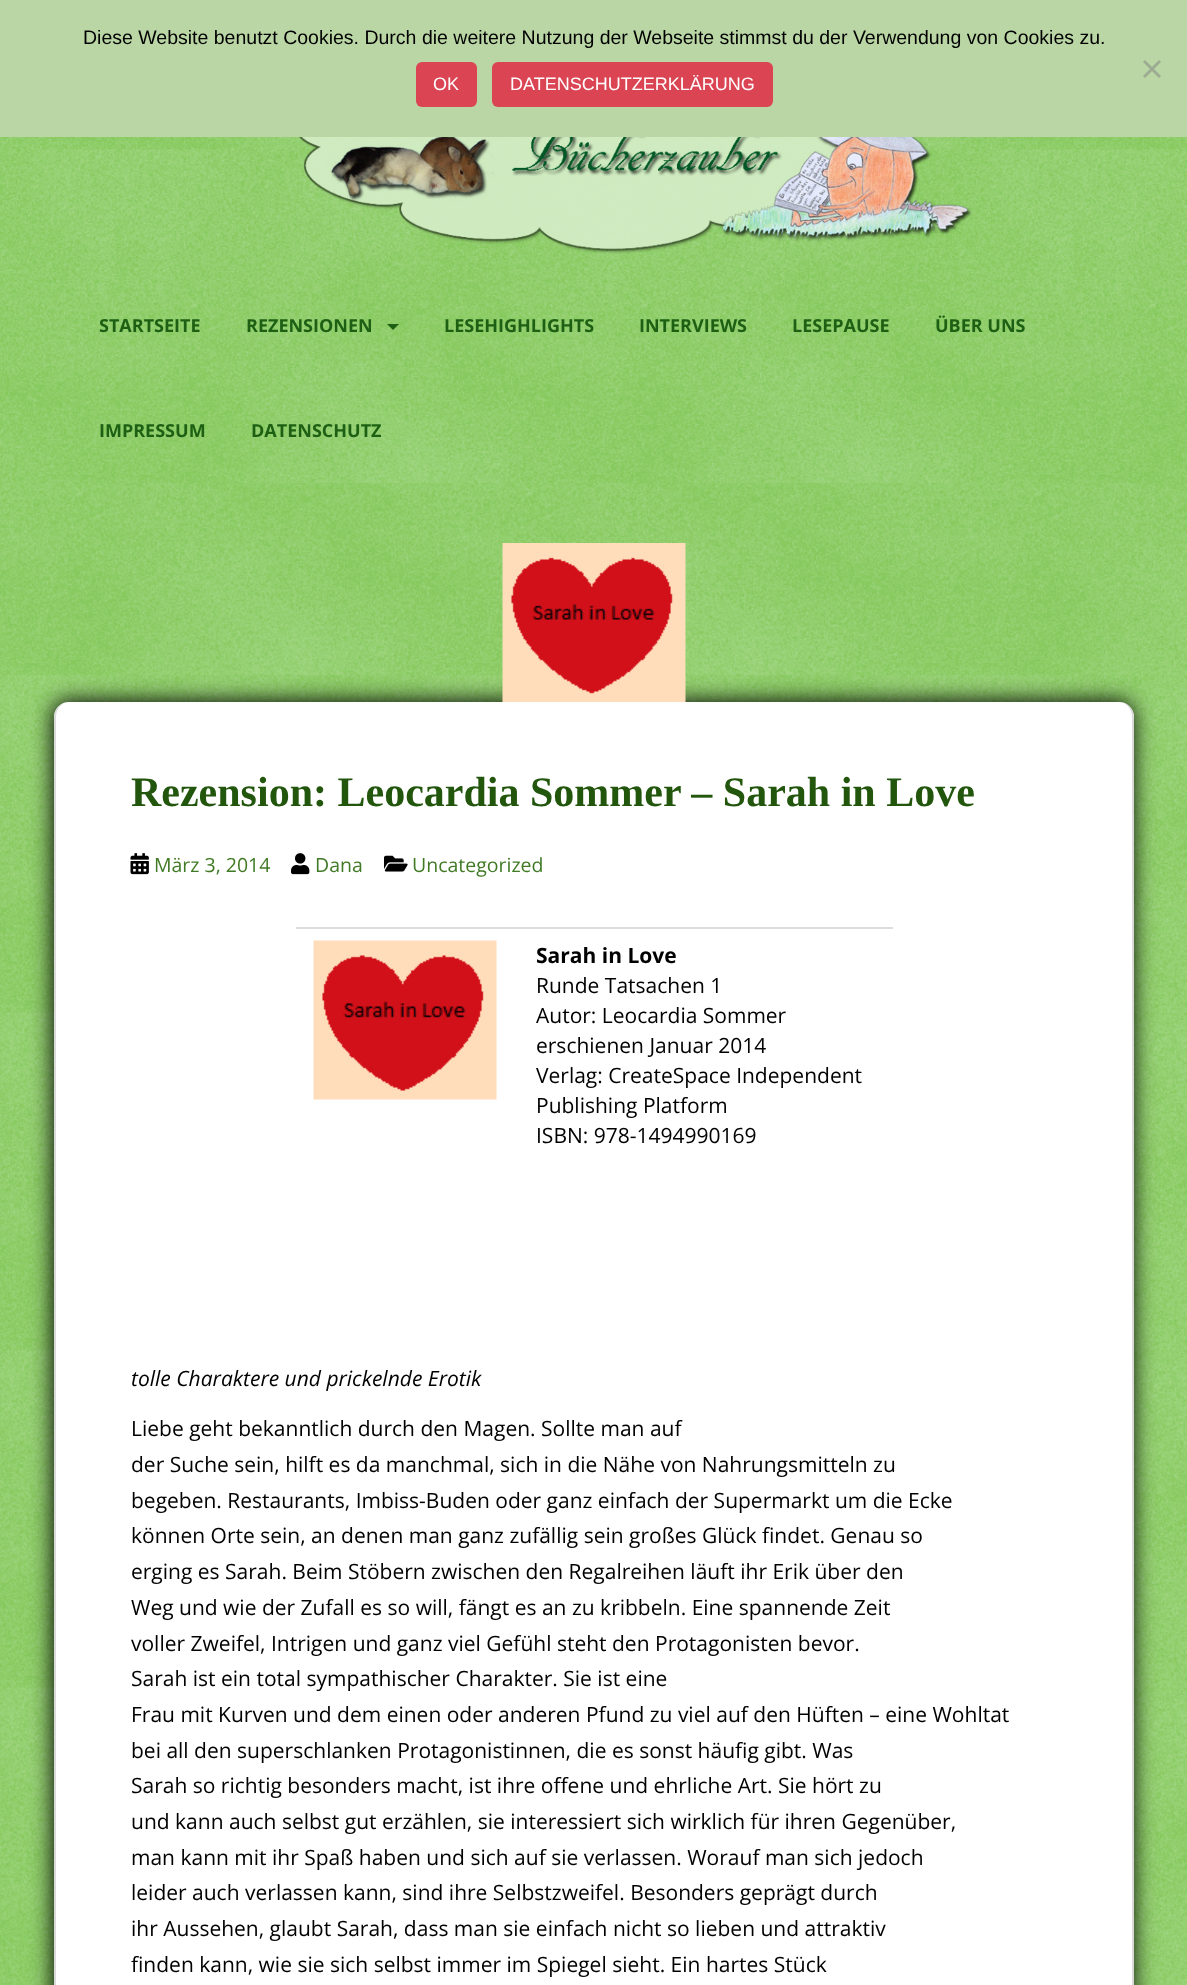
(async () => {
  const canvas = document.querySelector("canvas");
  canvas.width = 1187;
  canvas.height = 1985;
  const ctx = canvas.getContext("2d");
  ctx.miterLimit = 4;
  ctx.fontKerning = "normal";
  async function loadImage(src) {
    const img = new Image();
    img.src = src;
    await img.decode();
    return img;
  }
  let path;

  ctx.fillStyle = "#ffffff";
  ctx.fillRect(0, 0, 1187, 1985);
  ctx.drawImage(await loadImage("img/1.png"), 0, 483, 1187, 1502);
  ctx.fillStyle = "#b9d6a4";
  ctx.fillRect(0, 0, 1187, 137);
  ctx.fillStyle = "#9dab92";
  path = new Path2D("M1159 60L1161 62L1145 78L1143 76Z");
  ctx.fill(path);
  path = new Path2D("M1143 62L1145 60L1161 76L1159 78Z");
  ctx.fill(path);
  ctx.fillStyle = "#da4453";
  ctx.beginPath();
  ctx.roundRect(416, 62, 61, 45, 6);
  ctx.fill();
  ctx.beginPath();
  ctx.roundRect(492, 62, 281, 45, 6);
  ctx.fill();
  ctx.drawImage(await loadImage("img/2.png"), 0, 137, 1187, 346);
  ctx.drawImage(await loadImage("img/3.png"), 299, 137, 673, 117);
  ctx.fillStyle = "#1d6014";
  path = new Path2D("M387 324H399L393 330Z");
  ctx.fill(path);
  ctx.fillStyle = "#000000";
  ctx.filter = "blur(11px)";
  ctx.beginPath();
  ctx.roundRect(53, 701, 1080, 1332, 15);
  ctx.fill();
  ctx.filter = "none";
  ctx.drawImage(await loadImage("img/4.png"), 502, 543, 184, 159);
  ctx.fillStyle = "#ffffff";
  ctx.beginPath();
  ctx.roundRect(54, 702, 1080, 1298, 15);
  ctx.fill();
  ctx.fillStyle = "#dadada";
  path = new Path2D("M69 702H1119C1127 702 1134 709 1134 717V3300C1134 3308 1127 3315 1119 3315H69C61 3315 54 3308 54 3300V717C54 709 61 702 69 702ZM69 702H1119C1126 702 1132 709 1132 717V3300C1132 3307 1126 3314 1119 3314H69C62 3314 56 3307 56 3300V717C56 709 62 702 69 702Z");
  ctx.fill(path, "evenodd");
  ctx.drawImage(await loadImage("img/5.png"), 130, 853, 19, 22);
  ctx.drawImage(await loadImage("img/6.png"), 291, 853, 19, 22);
  ctx.drawImage(await loadImage("img/7.png"), 384, 855, 24, 17);
  ctx.drawImage(await loadImage("img/8.png"), 313, 940, 184, 160);
  ctx.fillStyle = "#dddddd";
  ctx.fillRect(296, 927, 597, 2);
  ctx.font = "19.5px Liberation Sans";
  ctx.fillStyle = "#000000";
  ctx.fillText("Diese Website benutzt Cookies. Durch die weitere Nutzung der Webseite stimmst du der Verwendung von Cookies zu.", 83, 44);
  ctx.font = "18px Liberation Sans";
  ctx.fillStyle = "#ffffff";
  ctx.fillText("OK", 433, 90);
  ctx.fillText("DATENSCHUTZERKLÄRUNG", 510, 90);
  ctx.font = "bold 18px Open Sans";
  ctx.fillStyle = "#1d6014";
  for (const [text, x, y] of [
    ["STARTSEITE", 99, 332],
    ["REZENSIONEN", 246, 332],
    ["LESEHIGHLIGHTS", 444, 332],
    ["INTERVIEWS", 639, 332],
    ["LESEPAUSE", 792, 332],
    ["ÜBER UNS", 935, 332],
    ["IMPRESSUM", 99, 437],
    ["DATENSCHUTZ", 251, 437],
  ]) {
    ctx.fillText(text, x, y);
  }
  ctx.font = "bold 42px Liberation Serif";
  ctx.fillStyle = "#22560d";
  ctx.fillText("Rezension: Leocardia Sommer – Sarah in Love", 131, 806);
  ctx.font = "19.5px Open Sans";
  ctx.fillStyle = "#407a25";
  for (const [text, x, y] of [
    ["März 3, 2014", 154, 872],
    ["Dana", 315, 872],
    ["Uncategorized", 412, 872],
  ]) {
    ctx.fillText(text, x, y);
  }
  ctx.font = "bold 21px Open Sans";
  ctx.fillStyle = "#000000";
  ctx.fillText("Sarah in Love", 536, 963);
  ctx.font = "21px Open Sans";
  for (const [text, x, y] of [
    ["Runde Tatsachen 1", 536, 993],
    ["Autor: Leocardia Sommer", 536, 1023],
    ["erschienen Januar 2014", 536, 1053],
    ["Verlag: CreateSpace Independent", 536, 1083],
    ["Publishing Platform", 536, 1113],
    ["ISBN: 978-1494990169", 536, 1143],
  ]) {
    ctx.fillText(text, x, y);
  }
  ctx.font = "italic 21px Open Sans";
  ctx.fillText("tolle Charaktere und prickelnde Erotik", 131, 1386);
  ctx.font = "21px Open Sans";
  for (const [text, x, y] of [
    ["Liebe geht bekanntlich durch den Magen. Sollte man auf", 131, 1436],
    ["der Suche sein, hilft es da manchmal, sich in die Nähe von Nahrungsmitteln zu", 131, 1472],
    ["begeben. Restaurants, Imbiss-Buden oder ganz einfach der Supermarkt um die Ecke", 131, 1508],
    ["können Orte sein, an denen man ganz zufällig sein großes Glück findet. Genau so", 131, 1543],
    ["erging es Sarah. Beim Stöbern zwischen den Regalreihen läuft ihr Erik über den", 131, 1579],
    ["Weg und wie der Zufall es so will, fängt es an zu kribbeln. Eine spannende Zeit", 131, 1615],
    ["voller Zweifel, Intrigen und ganz viel Gefühl steht den Protagonisten bevor.", 131, 1651],
    ["Sarah ist ein total sympathischer Charakter. Sie ist eine", 131, 1686],
    ["Frau mit Kurven und dem einen oder anderen Pfund zu viel auf den Hüften – eine Wohltat", 131, 1722],
    ["bei all den superschlanken Protagonistinnen, die es sonst häufig gibt. Was", 131, 1758],
    ["Sarah so richtig besonders macht, ist ihre offene und ehrliche Art. Sie hört zu", 131, 1793],
    ["und kann auch selbst gut erzählen, sie interessiert sich wirklich für ihren Gegenüber,", 131, 1829],
    ["man kann mit ihr Spaß haben und sich auf sie verlassen. Worauf man sich jedoch", 131, 1865],
    ["leider auch verlassen kann, sind ihre Selbstzweifel. Besonders geprägt durch", 131, 1900],
    ["ihr Aussehen, glaubt Sarah, dass man sie einfach nicht so lieben und attraktiv", 131, 1936],
    ["finden kann, wie sie sich selbst immer im Spiegel sieht. Ein hartes Stück", 131, 1972],
  ]) {
    ctx.fillText(text, x, y);
  }
})();
